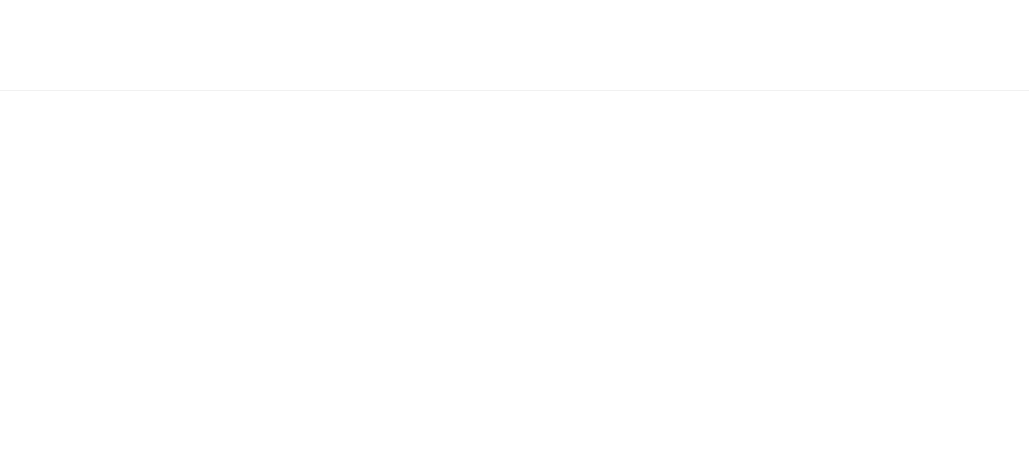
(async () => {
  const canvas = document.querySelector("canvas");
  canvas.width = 1029;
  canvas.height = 454;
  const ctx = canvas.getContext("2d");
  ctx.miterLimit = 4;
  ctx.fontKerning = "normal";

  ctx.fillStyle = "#ffffff";
  ctx.fillRect(0, 0, 1029, 454);
  ctx.fillStyle = "#f1f1f1";
  ctx.fillRect(0, 90, 1029, 1);
})();
